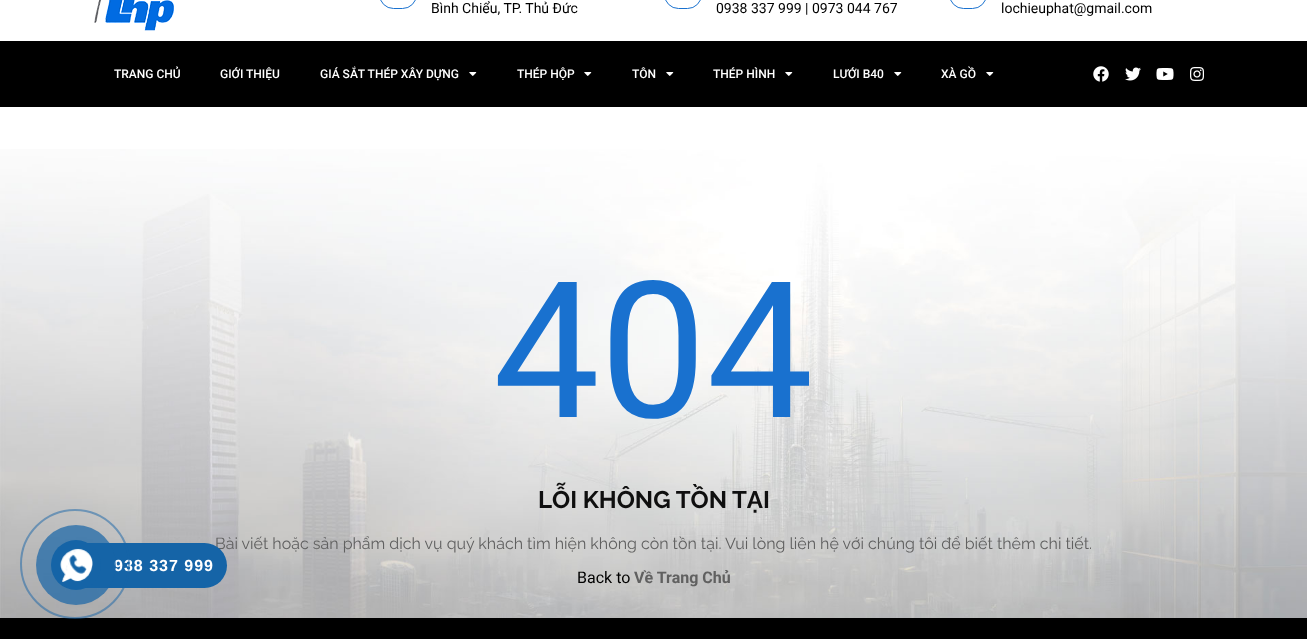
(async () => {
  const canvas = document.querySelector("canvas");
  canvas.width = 1307;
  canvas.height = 639;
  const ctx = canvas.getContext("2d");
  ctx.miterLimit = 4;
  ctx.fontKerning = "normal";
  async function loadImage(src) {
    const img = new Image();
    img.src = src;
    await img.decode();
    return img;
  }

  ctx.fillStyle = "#ffffff";
  ctx.fillRect(0, 0, 1307, 639);
  ctx.drawImage(await loadImage("img/1.png"), 94, 0, 80, 31);
  ctx.beginPath();
  ctx.roundRect(379.5, -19.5, 37, 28, 18.5);
  ctx.strokeStyle = "#1971cf";
  ctx.stroke();
  ctx.beginPath();
  ctx.roundRect(664.5, -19.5, 37, 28, 18.5);
  ctx.stroke();
  ctx.beginPath();
  ctx.roundRect(949.5, -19.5, 37, 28, 18.5);
  ctx.stroke();
  ctx.fillStyle = "#000000";
  ctx.fillRect(0, 41, 1307, 66);
  ctx.drawImage(await loadImage("img/2.png"), 469, 72, 8, 4);
  ctx.drawImage(await loadImage("img/2.png"), 584, 72, 8, 4);
  ctx.drawImage(await loadImage("img/2.png"), 666, 72, 8, 4);
  ctx.drawImage(await loadImage("img/2.png"), 785, 72, 8, 4);
  ctx.drawImage(await loadImage("img/2.png"), 894, 72, 8, 4);
  ctx.drawImage(await loadImage("img/2.png"), 986, 72, 8, 4);
  ctx.drawImage(await loadImage("img/3.png"), 1093, 66, 16, 16);
  ctx.drawImage(await loadImage("img/4.png"), 1125, 67, 16, 14);
  ctx.drawImage(await loadImage("img/5.png"), 1156, 68, 18, 12);
  ctx.drawImage(await loadImage("img/6.png"), 1190, 67, 14, 14);
  ctx.drawImage(await loadImage("img/8.png"), 0, 149, 1307, 469);
  ctx.fillRect(0, 618, 1307, 21);
  ctx.font = "14px Roboto";
  for (const [text, x, y] of [
    ["Bình Chiểu, TP. Thủ Đức", 431, 13],
    ["0938 337 999 | 0973 044 767", 716, 13],
    ["lochieuphat@gmail.com", 1001, 13],
  ]) {
    ctx.fillText(text, x, y);
  }
  ctx.font = "500 12px Roboto";
  ctx.fillStyle = "#ffffff";
  for (const [text, x, y] of [
    ["TRANG CHỦ", 114, 78],
    ["GIỚI THIỆU", 220, 78],
    ["GIÁ SẮT THÉP XÂY DỰNG", 320, 78],
    ["THÉP HỘP", 517, 78],
    ["TÔN", 632, 78],
    ["THÉP HÌNH", 713, 78],
    ["LƯỚI B40", 833, 78],
    ["XÀ GỒ", 941, 78],
  ]) {
    ctx.fillText(text, x, y);
  }
  ctx.font = "190px Roboto";
  ctx.fillStyle = "#1971cf";
  ctx.fillText("404", 493, 417);
  ctx.font = "bold 24px Raleway";
  ctx.fillStyle = "#0f0f0f";
  ctx.fillText("LỖI KHÔNG TỒN TẠI", 538, 508);
  ctx.font = "16px Raleway";
  ctx.fillStyle = "#606060";
  ctx.fillText("Bài viết hoặc sản phẩm dịch vụ quý khách tìm hiện không còn tồn tại. Vui lòng liên hệ với chúng tôi để biết thêm chi tiết.", 215, 549);
  ctx.fillStyle = "#1564a7";
  ctx.beginPath();
  ctx.roundRect(62, 543, 165, 45, 22.5);
  ctx.fill();
  ctx.letterSpacing = "1px";
  ctx.font = "bold 16px Liberation Sans";
  ctx.fillStyle = "#ffffff";
  ctx.fillText("938 337 999", 114, 571);
  ctx.beginPath();
  ctx.arc(75, 564, 54, 0, Math.PI * 2);
  ctx.strokeStyle = "rgba(21, 100, 167, 0.5)";
  ctx.lineWidth = 2;
  ctx.stroke();
  ctx.fillStyle = "rgba(21, 100, 167, 0.7)";
  ctx.beginPath();
  ctx.arc(76, 565, 40, 0, Math.PI * 2);
  ctx.fill();
  ctx.fillStyle = "#1564a7";
  ctx.beginPath();
  ctx.arc(76, 565, 25, 0, Math.PI * 2);
  ctx.fill();
  ctx.drawImage(await loadImage("img/7.png"), 60, 548, 33, 34);
  ctx.letterSpacing = "0px";
  ctx.font = "16px Roboto";
  ctx.fillStyle = "#000000";
  ctx.fillText("Back to", 577, 583);
  ctx.font = "bold 16px Roboto";
  ctx.fillStyle = "#606060";
  ctx.fillText("Về Trang Chủ", 634, 583);
})();
